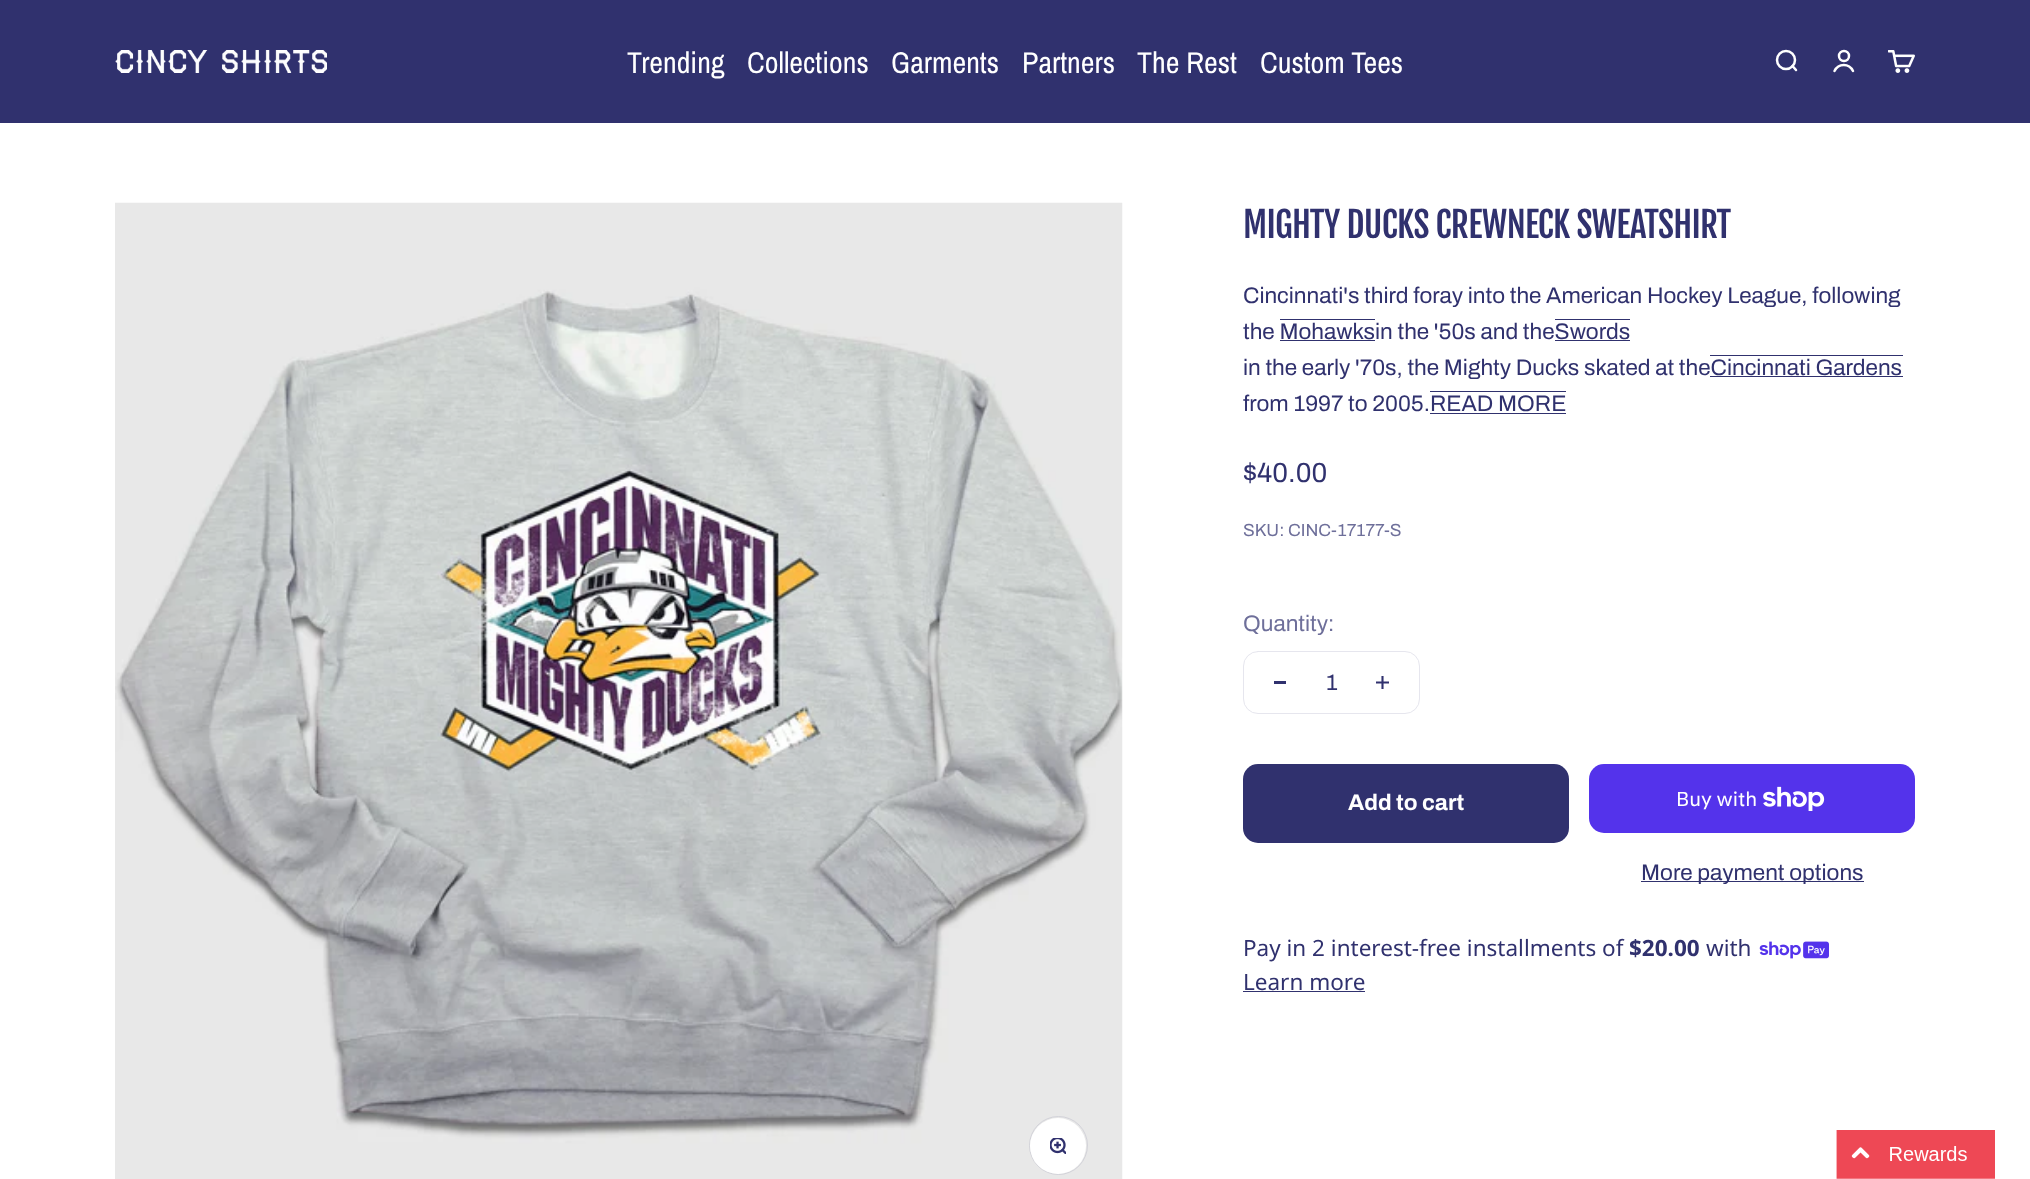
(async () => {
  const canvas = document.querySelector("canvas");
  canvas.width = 2030;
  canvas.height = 1179;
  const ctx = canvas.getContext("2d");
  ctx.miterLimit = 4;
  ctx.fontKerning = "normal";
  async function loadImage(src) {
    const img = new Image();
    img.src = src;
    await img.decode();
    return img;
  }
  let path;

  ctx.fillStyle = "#ffffff";
  ctx.fillRect(0, 0, 2030, 1179);
  ctx.fillStyle = "#30316e";
  ctx.fillRect(0, 0, 2030, 123);
  ctx.drawImage(await loadImage("img/1.png"), 115, 50, 212, 23);
  ctx.beginPath();
  ctx.arc(1786, 60, 9, 0, Math.PI * 2);
  ctx.strokeStyle = "#ffffff";
  ctx.lineWidth = 2.5;
  ctx.stroke();
  path = new Path2D("M1792.5 66L1796 70");
  ctx.lineCap = "round";
  ctx.lineJoin = "round";
  ctx.stroke(path);
  ctx.beginPath();
  ctx.arc(1844, 56, 5, 0, Math.PI * 2);
  ctx.stroke();
  path = new Path2D("M1834.5 71C1838.5 63 1849 63 1853 71");
  ctx.lineJoin = "miter";
  ctx.stroke(path);
  ctx.drawImage(await loadImage("img/2.png"), 1888, 50, 27, 23);
  ctx.drawImage(await loadImage("img/3.png"), 115, 202, 1008, 977);
  ctx.beginPath();
  ctx.arc(1058.5, 1145.5, 29, 0, Math.PI * 2);
  ctx.strokeStyle = "#d2d2d9";
  ctx.lineWidth = 1;
  ctx.stroke();
  ctx.fillStyle = "#ffffff";
  ctx.beginPath();
  ctx.arc(1058, 1146, 28, 0, Math.PI * 2);
  ctx.fill();
  ctx.drawImage(await loadImage("img/4.png"), 1050, 1138, 16, 16);
  for (const [x, y, w, h, color] of [
    [1280, 319, 95, 1, "#30316e"],
    [1280, 340, 95, 1, "#30316e"],
    [1555, 319, 75, 1, "#30316e"],
    [1555, 340, 75, 1, "#30316e"],
    [1710, 355, 193, 1, "#30316e"],
    [1710, 376, 193, 1, "#30316e"],
    [1430, 391, 136, 1, "#30316e"],
    [1430, 413, 136, 1, "#30316e"],
  ]) {
    ctx.fillStyle = color;
    ctx.fillRect(x, y, w, h);
  }
  ctx.beginPath();
  ctx.roundRect(1243.5, 651.5, 176, 62, 14.5);
  ctx.strokeStyle = "#e6e6ee";
  ctx.stroke();
  ctx.fillRect(1274, 681, 12, 3);
  path = new Path2D("M1382.5 676V689M1376 682.5H1389");
  ctx.strokeStyle = "#30316e";
  ctx.lineWidth = 2.1;
  ctx.lineCap = "butt";
  ctx.stroke(path);
  ctx.beginPath();
  ctx.roundRect(1243, 764, 326, 79, 15);
  ctx.fill();
  ctx.fillStyle = "#5433eb";
  ctx.beginPath();
  ctx.roundRect(1589, 764, 326, 69, 15);
  ctx.fill();
  ctx.drawImage(await loadImage("img/5.png"), 1763, 786, 62, 25);
  ctx.fillStyle = "#30316e";
  ctx.fillRect(1641, 881, 223, 1);
  ctx.drawImage(await loadImage("img/6.png"), 1759, 941, 70, 18);
  ctx.fillRect(1243, 991, 122, 1);
  ctx.drawImage(await loadImage("img/7.png"), 1836, 1130, 159, 49);
  ctx.font = "30px Archivo Narrow";
  ctx.fillStyle = "#ffffff";
  for (const [text, x, y] of [
    ["Trending", 627, 73],
    ["Collections", 747, 73],
    ["Garments", 891, 73],
    ["Partners", 1022, 73],
    ["The Rest", 1137, 73],
    ["Custom Tees", 1260, 73],
  ]) {
    ctx.fillText(text, x, y);
  }
  ctx.letterSpacing = "-0.7px";
  ctx.font = "35px Fjalla One";
  ctx.fillStyle = "#30316e";
  ctx.fillText("MIGHTY DUCKS CREWNECK SWEATSHIRT", 1243, 238);
  ctx.letterSpacing = "0px";
  ctx.font = "22.5px Archivo";
  for (const [text, x, y] of [
    ["Cincinnati's third foray into the American Hockey League, following", 1243, 303],
    ["the Mohawksin the '50s and theSwords", 1243, 339],
    ["in the early '70s, the Mighty Ducks skated at theCincinnati Gardens", 1243, 375],
    ["from 1997 to 2005.READ MORE", 1243, 411],
  ]) {
    ctx.fillText(text, x, y);
  }
  ctx.font = "27.5px Archivo";
  ctx.fillText("$40.00", 1243, 482);
  ctx.font = "17.5px Archivo";
  ctx.fillStyle = "#6e6f9a";
  ctx.fillText("SKU: CINC-17177-S", 1243, 536);
  ctx.font = "22.5px Archivo";
  ctx.fillText("Quantity:", 1243, 631);
  ctx.fillStyle = "#30316e";
  ctx.fillText("1", 1326, 690);
  ctx.font = "bold 22.5px Archivo";
  ctx.fillStyle = "#ffffff";
  ctx.fillText("Add to cart", 1348, 810);
  ctx.font = "20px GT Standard";
  ctx.fillText("Buy with", 1676, 806);
  ctx.font = "22.5px Archivo";
  ctx.fillStyle = "#30316e";
  ctx.fillText("More payment options", 1641, 880);
  ctx.font = "22.5px Noto Sans";
  ctx.fillText("Pay in 2 interest-free installments of", 1243, 956);
  ctx.font = "bold 22.5px Noto Sans";
  ctx.fillText("$20.00", 1629, 956);
  ctx.font = "22.5px Noto Sans";
  ctx.fillText("with", 1706, 956);
  ctx.fillText("Learn more", 1243, 990);
})();
